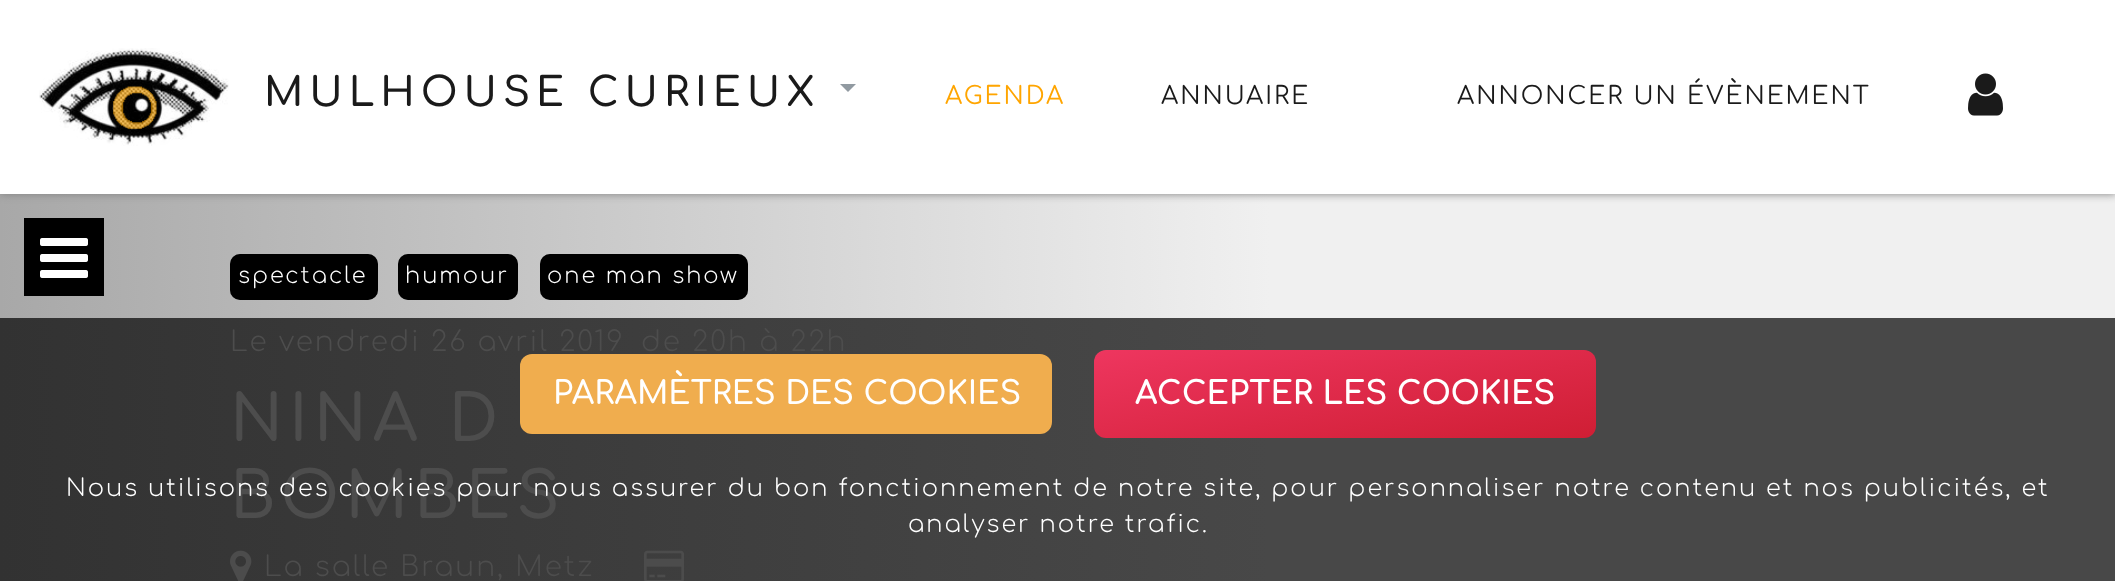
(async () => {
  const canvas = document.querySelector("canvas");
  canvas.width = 2115;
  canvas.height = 581;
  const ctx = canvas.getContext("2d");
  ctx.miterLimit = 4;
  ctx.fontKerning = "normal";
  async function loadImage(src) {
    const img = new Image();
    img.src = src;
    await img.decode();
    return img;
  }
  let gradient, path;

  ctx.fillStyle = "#ffffff";
  ctx.fillRect(0, 0, 2115, 581);
  gradient = ctx.createLinearGradient(0, 447, 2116, 447);
  gradient.addColorStop(0, "#a8a8a8");
  gradient.addColorStop(0.6, "#f0f0f0");
  ctx.fillStyle = gradient;
  ctx.fillRect(0, 194, 2115, 124);
  ctx.fillStyle = "#808080";
  ctx.filter = "blur(4px)";
  ctx.beginPath();
  ctx.rect(0, 0, 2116, 194);
  ctx.fill();
  ctx.filter = "none";
  ctx.fillStyle = "#ffffff";
  ctx.fillRect(0, 0, 2115, 194);
  ctx.drawImage(await loadImage("img/1.png"), 39, 48, 190, 98);
  ctx.fillStyle = "#919aa1";
  path = new Path2D("M840 84H856L848 92Z");
  ctx.fill(path);
  ctx.drawImage(await loadImage("img/2.png"), 1968, 73, 35, 43);
  gradient = ctx.createLinearGradient(0, 447, 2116, 447);
  gradient.addColorStop(0, "#323232");
  gradient.addColorStop(0.6, "#484848");
  ctx.fillStyle = gradient;
  ctx.fillRect(0, 318, 2115, 263);
  ctx.fillStyle = "#000000";
  ctx.fillRect(24, 218, 80, 78);
  ctx.drawImage(await loadImage("img/3.png"), 40, 238, 48, 40);
  ctx.beginPath();
  ctx.roundRect(230, 254, 148, 46, 10);
  ctx.fill();
  ctx.beginPath();
  ctx.roundRect(231, 255, 146, 44, 9);
  ctx.strokeStyle = "rgba(0, 0, 0, 0.3)";
  ctx.lineWidth = 2;
  ctx.stroke();
  ctx.beginPath();
  ctx.roundRect(398, 254, 120, 46, 10);
  ctx.fill();
  ctx.beginPath();
  ctx.roundRect(399, 255, 118, 44, 9);
  ctx.stroke();
  ctx.beginPath();
  ctx.roundRect(540, 254, 208, 46, 10);
  ctx.fill();
  ctx.beginPath();
  ctx.roundRect(541, 255, 206, 44, 9);
  ctx.stroke();
  ctx.drawImage(await loadImage("img/4.png"), 230, 550, 22, 31);
  ctx.drawImage(await loadImage("img/5.png"), 644, 550, 40, 31);
  ctx.fillStyle = "#f0ad4e";
  ctx.beginPath();
  ctx.roundRect(520, 354, 532, 80, 12);
  ctx.fill();
  gradient = ctx.createLinearGradient(1362, 483, 1328, 305);
  gradient.addColorStop(0, "#cf1e34");
  gradient.addColorStop(1, "#ee365f");
  ctx.fillStyle = gradient;
  ctx.beginPath();
  ctx.roundRect(1094, 350, 502, 88, 12);
  ctx.fill();
  ctx.letterSpacing = "6px";
  ctx.font = "600 40px Comfortaa";
  ctx.fillStyle = "#1a1a1a";
  ctx.fillText("MULHOUSE CURIEUX", 264, 106);
  ctx.letterSpacing = "2px";
  ctx.font = "24.5px Comfortaa";
  ctx.fillStyle = "#ffa500";
  ctx.fillText("AGENDA", 945, 104);
  ctx.fillStyle = "#1a1a1a";
  ctx.fillText("ANNUAIRE", 1161, 104);
  ctx.fillText("ANNONCER UN ÉVÈNEMENT", 1457, 104);
  ctx.font = "300 22.5px Comfortaa";
  ctx.fillStyle = "#ffffff";
  for (const [text, x, y] of [
    ["spectacle", 238, 283],
    ["humour", 405, 283],
    ["one man show", 547, 283],
  ]) {
    ctx.fillText(text, x, y);
  }
  ctx.font = "300 28px Comfortaa";
  ctx.fillStyle = "#4d4d4d";
  ctx.fillText("Le vendredi 26 avril 2019", 230, 351);
  ctx.fillText("de 20h à 22h", 641, 351);
  ctx.letterSpacing = "6px";
  ctx.font = "600 64px Comfortaa";
  ctx.fillText("NINA D", 230, 441);
  ctx.fillText("BOMBES", 230, 518);
  ctx.letterSpacing = "2px";
  ctx.font = "300 28px Comfortaa";
  ctx.fillText("La salle Braun, Metz", 264, 576);
  ctx.letterSpacing = "0px";
  ctx.font = "600 32px Comfortaa";
  ctx.fillStyle = "#ffffff";
  ctx.fillText("PARAMÈTRES DES COOKIES", 553, 404);
  ctx.font = "bold 32px Comfortaa";
  ctx.fillText("ACCEPTER LES COOKIES", 1135, 404);
  ctx.letterSpacing = "2px";
  ctx.font = "300 24px Comfortaa";
  ctx.fillText("Nous utilisons des cookies pour nous assurer du bon fonctionnement de notre site, pour personnaliser notre contenu et nos publicités, et", 66, 496);
  ctx.fillText("analyser notre trafic.", 908, 532);
})();
